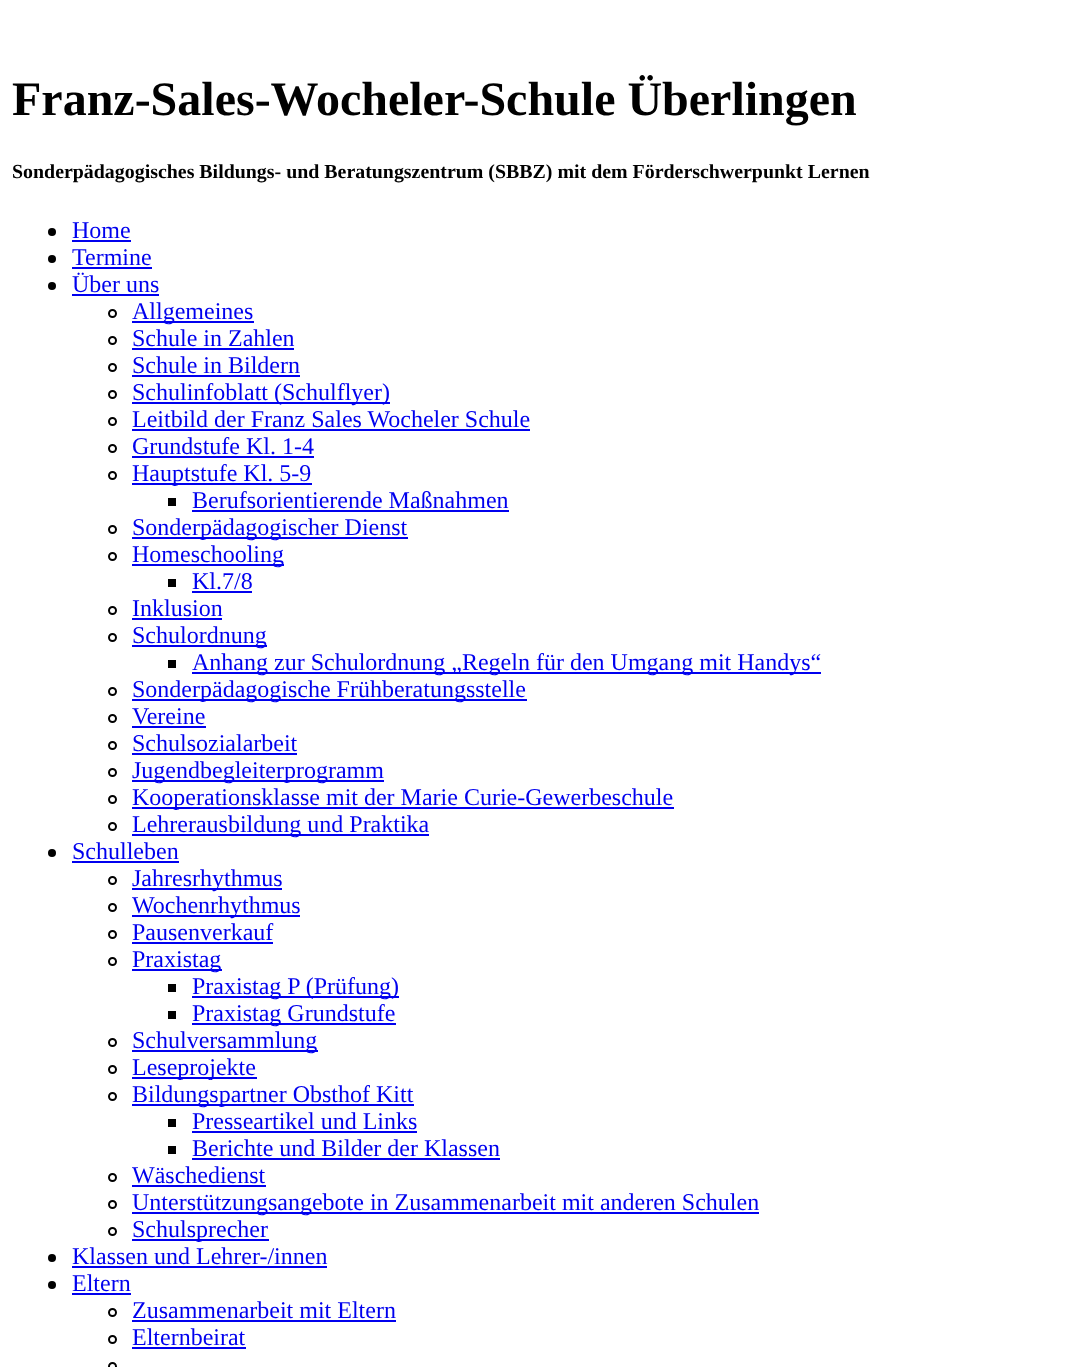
(async () => {
  const canvas = document.querySelector("canvas");
  canvas.width = 1092;
  canvas.height = 1367;
  const ctx = canvas.getContext("2d");
  ctx.miterLimit = 4;
  ctx.fontKerning = "normal";

  ctx.fillStyle = "#ffffff";
  ctx.fillRect(0, 0, 1092, 1367);
  ctx.fillStyle = "#000000";
  ctx.beginPath();
  ctx.arc(52, 232, 4, 0, Math.PI * 2);
  ctx.fill();
  ctx.fillStyle = "#0000ee";
  ctx.fillRect(72, 240, 59, 2);
  ctx.fillStyle = "#000000";
  ctx.beginPath();
  ctx.arc(52, 259, 4, 0, Math.PI * 2);
  ctx.fill();
  ctx.fillStyle = "#0000ee";
  ctx.fillRect(72, 267, 80, 2);
  ctx.fillStyle = "#000000";
  ctx.beginPath();
  ctx.arc(52, 286, 4, 0, Math.PI * 2);
  ctx.fill();
  ctx.fillStyle = "#0000ee";
  ctx.fillRect(72, 294, 87, 2);
  ctx.beginPath();
  ctx.arc(112.5, 313.5, 3.5, 0, Math.PI * 2);
  ctx.strokeStyle = "#000000";
  ctx.lineWidth = 2;
  ctx.stroke();
  ctx.fillRect(132, 321, 122, 2);
  ctx.beginPath();
  ctx.arc(112.5, 340.5, 3.5, 0, Math.PI * 2);
  ctx.stroke();
  ctx.fillRect(132, 348, 162, 2);
  ctx.beginPath();
  ctx.arc(112.5, 367.5, 3.5, 0, Math.PI * 2);
  ctx.stroke();
  ctx.fillRect(132, 375, 168, 2);
  ctx.beginPath();
  ctx.arc(112.5, 394.5, 3.5, 0, Math.PI * 2);
  ctx.stroke();
  ctx.fillRect(132, 402, 258, 2);
  ctx.beginPath();
  ctx.arc(112.5, 421.5, 3.5, 0, Math.PI * 2);
  ctx.stroke();
  ctx.fillRect(132, 429, 398, 2);
  ctx.beginPath();
  ctx.arc(112.5, 448.5, 3.5, 0, Math.PI * 2);
  ctx.stroke();
  ctx.fillRect(132, 456, 182, 2);
  ctx.beginPath();
  ctx.arc(112.5, 475.5, 3.5, 0, Math.PI * 2);
  ctx.stroke();
  for (const [x, y, w, h, color] of [
    [132, 483, 180, 2, "#0000ee"],
    [168, 498, 8, 8, "#000000"],
    [192, 510, 317, 2, "#0000ee"],
  ]) {
    ctx.fillStyle = color;
    ctx.fillRect(x, y, w, h);
  }
  ctx.beginPath();
  ctx.arc(112.5, 529.5, 3.5, 0, Math.PI * 2);
  ctx.stroke();
  ctx.fillRect(132, 537, 276, 2);
  ctx.beginPath();
  ctx.arc(112.5, 556.5, 3.5, 0, Math.PI * 2);
  ctx.stroke();
  for (const [x, y, w, h, color] of [
    [132, 564, 152, 2, "#0000ee"],
    [168, 579, 8, 8, "#000000"],
    [192, 591, 60, 2, "#0000ee"],
  ]) {
    ctx.fillStyle = color;
    ctx.fillRect(x, y, w, h);
  }
  ctx.beginPath();
  ctx.arc(112.5, 610.5, 3.5, 0, Math.PI * 2);
  ctx.stroke();
  ctx.fillRect(132, 618, 90, 2);
  ctx.beginPath();
  ctx.arc(112.5, 637.5, 3.5, 0, Math.PI * 2);
  ctx.stroke();
  for (const [x, y, w, h, color] of [
    [132, 645, 135, 2, "#0000ee"],
    [168, 660, 8, 8, "#000000"],
    [192, 672, 629, 2, "#0000ee"],
  ]) {
    ctx.fillStyle = color;
    ctx.fillRect(x, y, w, h);
  }
  ctx.beginPath();
  ctx.arc(112.5, 691.5, 3.5, 0, Math.PI * 2);
  ctx.stroke();
  ctx.fillRect(132, 699, 395, 2);
  ctx.beginPath();
  ctx.arc(112.5, 718.5, 3.5, 0, Math.PI * 2);
  ctx.stroke();
  ctx.fillRect(132, 726, 74, 2);
  ctx.beginPath();
  ctx.arc(112.5, 745.5, 3.5, 0, Math.PI * 2);
  ctx.stroke();
  ctx.fillRect(132, 753, 165, 2);
  ctx.beginPath();
  ctx.arc(112.5, 772.5, 3.5, 0, Math.PI * 2);
  ctx.stroke();
  ctx.fillRect(132, 780, 252, 2);
  ctx.beginPath();
  ctx.arc(112.5, 799.5, 3.5, 0, Math.PI * 2);
  ctx.stroke();
  ctx.fillRect(132, 807, 542, 2);
  ctx.beginPath();
  ctx.arc(112.5, 826.5, 3.5, 0, Math.PI * 2);
  ctx.stroke();
  ctx.fillRect(132, 834, 297, 2);
  ctx.fillStyle = "#000000";
  ctx.beginPath();
  ctx.arc(52, 853, 4, 0, Math.PI * 2);
  ctx.fill();
  ctx.fillStyle = "#0000ee";
  ctx.fillRect(72, 861, 107, 2);
  ctx.beginPath();
  ctx.arc(112.5, 880.5, 3.5, 0, Math.PI * 2);
  ctx.stroke();
  ctx.fillRect(132, 888, 150, 2);
  ctx.beginPath();
  ctx.arc(112.5, 907.5, 3.5, 0, Math.PI * 2);
  ctx.stroke();
  ctx.fillRect(132, 915, 168, 2);
  ctx.beginPath();
  ctx.arc(112.5, 934.5, 3.5, 0, Math.PI * 2);
  ctx.stroke();
  ctx.fillRect(132, 942, 141, 2);
  ctx.beginPath();
  ctx.arc(112.5, 961.5, 3.5, 0, Math.PI * 2);
  ctx.stroke();
  for (const [x, y, w, h, color] of [
    [132, 969, 90, 2, "#0000ee"],
    [168, 984, 8, 8, "#000000"],
    [192, 996, 207, 2, "#0000ee"],
    [168, 1011, 8, 8, "#000000"],
    [192, 1023, 204, 2, "#0000ee"],
  ]) {
    ctx.fillStyle = color;
    ctx.fillRect(x, y, w, h);
  }
  ctx.beginPath();
  ctx.arc(112.5, 1042.5, 3.5, 0, Math.PI * 2);
  ctx.stroke();
  ctx.fillRect(132, 1050, 186, 2);
  ctx.beginPath();
  ctx.arc(112.5, 1069.5, 3.5, 0, Math.PI * 2);
  ctx.stroke();
  ctx.fillRect(132, 1077, 125, 2);
  ctx.beginPath();
  ctx.arc(112.5, 1096.5, 3.5, 0, Math.PI * 2);
  ctx.stroke();
  for (const [x, y, w, h, color] of [
    [132, 1104, 282, 2, "#0000ee"],
    [168, 1119, 8, 8, "#000000"],
    [192, 1131, 225, 2, "#0000ee"],
    [168, 1146, 8, 8, "#000000"],
    [192, 1158, 308, 2, "#0000ee"],
  ]) {
    ctx.fillStyle = color;
    ctx.fillRect(x, y, w, h);
  }
  ctx.beginPath();
  ctx.arc(112.5, 1177.5, 3.5, 0, Math.PI * 2);
  ctx.stroke();
  ctx.fillRect(132, 1185, 134, 2);
  ctx.beginPath();
  ctx.arc(112.5, 1204.5, 3.5, 0, Math.PI * 2);
  ctx.stroke();
  ctx.fillRect(132, 1212, 627, 2);
  ctx.beginPath();
  ctx.arc(112.5, 1231.5, 3.5, 0, Math.PI * 2);
  ctx.stroke();
  ctx.fillRect(132, 1239, 137, 2);
  ctx.fillStyle = "#000000";
  ctx.beginPath();
  ctx.arc(52, 1258, 4, 0, Math.PI * 2);
  ctx.fill();
  ctx.fillStyle = "#0000ee";
  ctx.fillRect(72, 1266, 255, 2);
  ctx.fillStyle = "#000000";
  ctx.beginPath();
  ctx.arc(52, 1285, 4, 0, Math.PI * 2);
  ctx.fill();
  ctx.fillStyle = "#0000ee";
  ctx.fillRect(72, 1293, 59, 2);
  ctx.beginPath();
  ctx.arc(112.5, 1312.5, 3.5, 0, Math.PI * 2);
  ctx.stroke();
  ctx.fillRect(132, 1320, 264, 2);
  ctx.beginPath();
  ctx.arc(112.5, 1339.5, 3.5, 0, Math.PI * 2);
  ctx.stroke();
  ctx.fillRect(132, 1347, 114, 2);
  ctx.beginPath();
  ctx.arc(112.5, 1366.5, 3.5, 0, Math.PI * 2);
  ctx.stroke();
  ctx.font = "bold 48px Liberation Serif";
  ctx.fillStyle = "#000000";
  ctx.fillText("Franz-Sales-Wocheler-Schule Überlingen", 12, 115);
  ctx.font = "bold 19.9px Liberation Serif";
  ctx.fillText("Sonderpädagogisches Bildungs- und Beratungszentrum (SBBZ) mit dem Förderschwerpunkt Lernen", 12, 178);
  ctx.font = "24px Liberation Serif";
  ctx.fillStyle = "#0000ee";
  for (const [text, x, y] of [
    ["Home", 72, 238],
    ["Termine", 72, 265],
    ["Über uns", 72, 292],
    ["Allgemeines", 132, 319],
    ["Schule in Zahlen", 132, 346],
    ["Schule in Bildern", 132, 373],
    ["Schulinfoblatt (Schulflyer)", 132, 400],
    ["Leitbild der Franz Sales Wocheler Schule", 132, 427],
    ["Grundstufe Kl. 1-4", 132, 454],
    ["Hauptstufe Kl. 5-9", 132, 481],
    ["Berufsorientierende Maßnahmen", 192, 508],
    ["Sonderpädagogischer Dienst", 132, 535],
    ["Homeschooling", 132, 562],
    ["Kl.7/8", 192, 589],
    ["Inklusion", 132, 616],
    ["Schulordnung", 132, 643],
    ["Anhang zur Schulordnung „Regeln für den Umgang mit Handys“", 192, 670],
    ["Sonderpädagogische Frühberatungsstelle", 132, 697],
    ["Vereine", 132, 724],
    ["Schulsozialarbeit", 132, 751],
    ["Jugendbegleiterprogramm", 132, 778],
    ["Kooperationsklasse mit der Marie Curie-Gewerbeschule", 132, 805],
    ["Lehrerausbildung und Praktika", 132, 832],
    ["Schulleben", 72, 859],
    ["Jahresrhythmus", 132, 886],
    ["Wochenrhythmus", 132, 913],
    ["Pausenverkauf", 132, 940],
    ["Praxistag", 132, 967],
    ["Praxistag P (Prüfung)", 192, 994],
    ["Praxistag Grundstufe", 192, 1021],
    ["Schulversammlung", 132, 1048],
    ["Leseprojekte", 132, 1075],
    ["Bildungspartner Obsthof Kitt", 132, 1102],
    ["Presseartikel und Links", 192, 1129],
    ["Berichte und Bilder der Klassen", 192, 1156],
    ["Wäschedienst", 132, 1183],
    ["Unterstützungsangebote in Zusammenarbeit mit anderen Schulen", 132, 1210],
    ["Schulsprecher", 132, 1237],
    ["Klassen und Lehrer-/innen", 72, 1264],
    ["Eltern", 72, 1291],
    ["Zusammenarbeit mit Eltern", 132, 1318],
    ["Elternbeirat", 132, 1345],
  ]) {
    ctx.fillText(text, x, y);
  }
})();
